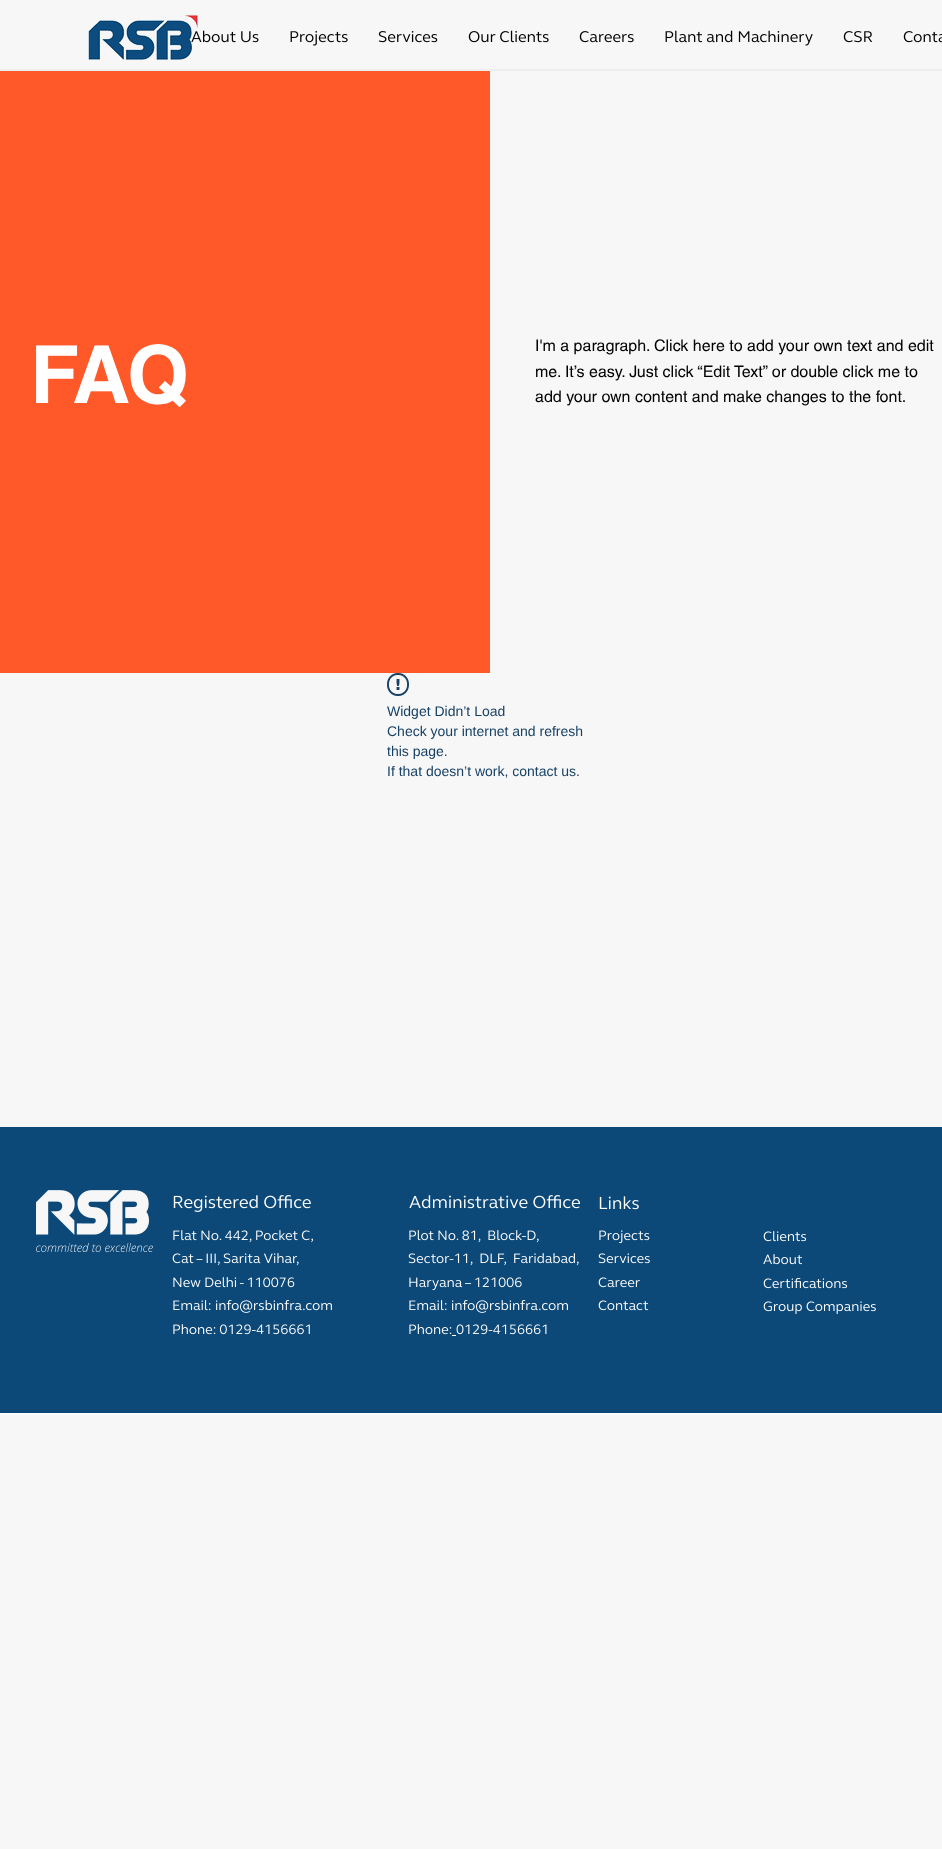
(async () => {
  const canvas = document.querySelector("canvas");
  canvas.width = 942;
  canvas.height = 1849;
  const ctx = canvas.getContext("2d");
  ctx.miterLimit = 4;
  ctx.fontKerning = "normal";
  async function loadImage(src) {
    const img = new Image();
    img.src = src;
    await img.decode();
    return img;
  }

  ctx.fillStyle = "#f7f7f7";
  ctx.fillRect(0, 0, 942, 1849);
  ctx.drawImage(await loadImage("img/1.png"), 88, 15, 110, 45);
  ctx.drawImage(await loadImage("img/2.png"), 191, 30, 68, 13);
  ctx.drawImage(await loadImage("img/3.png"), 290, 31, 58, 15);
  ctx.drawImage(await loadImage("img/4.png"), 378, 31, 60, 12);
  ctx.drawImage(await loadImage("img/5.png"), 468, 30, 81, 13);
  ctx.drawImage(await loadImage("img/6.png"), 579, 31, 55, 12);
  ctx.drawImage(await loadImage("img/7.png"), 665, 30, 148, 16);
  ctx.drawImage(await loadImage("img/8.png"), 843, 31, 30, 12);
  ctx.drawImage(await loadImage("img/9.png"), 903, 31, 39, 12);
  ctx.fillStyle = "#efeeee";
  ctx.fillRect(0, 69, 942, 2);
  ctx.fillStyle = "#ff5829";
  ctx.fillRect(0, 71, 490, 602);
  ctx.drawImage(await loadImage("img/10.png"), 387, 673, 22, 23);
  ctx.fillStyle = "#0c4878";
  ctx.fillRect(0, 1127, 942, 286);
  ctx.drawImage(await loadImage("img/11.png"), 36, 1190, 113, 45);
  ctx.drawImage(await loadImage("img/12.png"), 36, 1243, 117, 9);
  ctx.drawImage(await loadImage("img/13.png"), 173, 1195, 138, 17);
  ctx.drawImage(await loadImage("img/14.png"), 173, 1230, 140, 13);
  ctx.drawImage(await loadImage("img/15.png"), 172, 1253, 127, 13);
  ctx.drawImage(await loadImage("img/16.png"), 173, 1277, 122, 11);
  ctx.drawImage(await loadImage("img/17.png"), 173, 1300, 38, 11);
  ctx.drawImage(await loadImage("img/18.png"), 216, 1300, 116, 13);
  ctx.drawImage(await loadImage("img/19.png"), 173, 1324, 43, 11);
  ctx.drawImage(await loadImage("img/20.png"), 219, 1324, 91, 11);
  ctx.drawImage(await loadImage("img/21.png"), 599, 1196, 40, 14);
  ctx.drawImage(await loadImage("img/22.png"), 599, 1230, 51, 14);
  ctx.drawImage(await loadImage("img/23.png"), 598, 1253, 52, 11);
  ctx.drawImage(await loadImage("img/24.png"), 598, 1277, 42, 11);
  ctx.drawImage(await loadImage("img/25.png"), 598, 1300, 51, 11);
  ctx.drawImage(await loadImage("img/26.png"), 763, 1231, 44, 11);
  ctx.drawImage(await loadImage("img/27.png"), 763, 1254, 39, 11);
  ctx.drawImage(await loadImage("img/28.png"), 763, 1278, 85, 11);
  ctx.drawImage(await loadImage("img/29.png"), 763, 1301, 113, 13);
  ctx.drawImage(await loadImage("img/30.png"), 409, 1195, 171, 14);
  ctx.drawImage(await loadImage("img/31.png"), 409, 1230, 130, 13);
  ctx.drawImage(await loadImage("img/32.png"), 408, 1253, 171, 13);
  ctx.drawImage(await loadImage("img/33.png"), 409, 1277, 113, 14);
  ctx.drawImage(await loadImage("img/17.png"), 409, 1300, 38, 11);
  ctx.drawImage(await loadImage("img/18.png"), 452, 1300, 116, 13);
  ctx.drawImage(await loadImage("img/19.png"), 409, 1324, 43, 11);
  ctx.drawImage(await loadImage("img/34.png"), 456, 1324, 91, 11);
  ctx.fillStyle = "#ffffff";
  ctx.fillRect(452, 1335, 4, 1);
  ctx.fillStyle = "#fcfcfc";
  ctx.fillRect(0, 1413, 942, 2);
  ctx.font = "bold 80px helvetica";
  ctx.fillStyle = "#ffffff";
  ctx.fillText("FAQ", 30, 403);
  ctx.font = "16px helvetica";
  ctx.fillStyle = "#000000";
  for (const [text, x, y] of [
    ["I'm a paragraph. Click here to add your own text and edit", 535, 351],
    ["me. It’s easy. Just click “Edit Text” or double click me to", 535, 377],
    ["add your own content and make changes to the font.", 535, 402],
  ]) {
    ctx.fillText(text, x, y);
  }
  ctx.font = "14px Liberation Sans";
  ctx.fillStyle = "#174165";
  for (const [text, x, y] of [
    ["Widget Didn’t Load", 387, 716],
    ["Check your internet and refresh", 387, 736],
    ["this page.", 387, 756],
    ["If that doesn’t work, contact us.", 387, 776],
  ]) {
    ctx.fillText(text, x, y);
  }
})();
